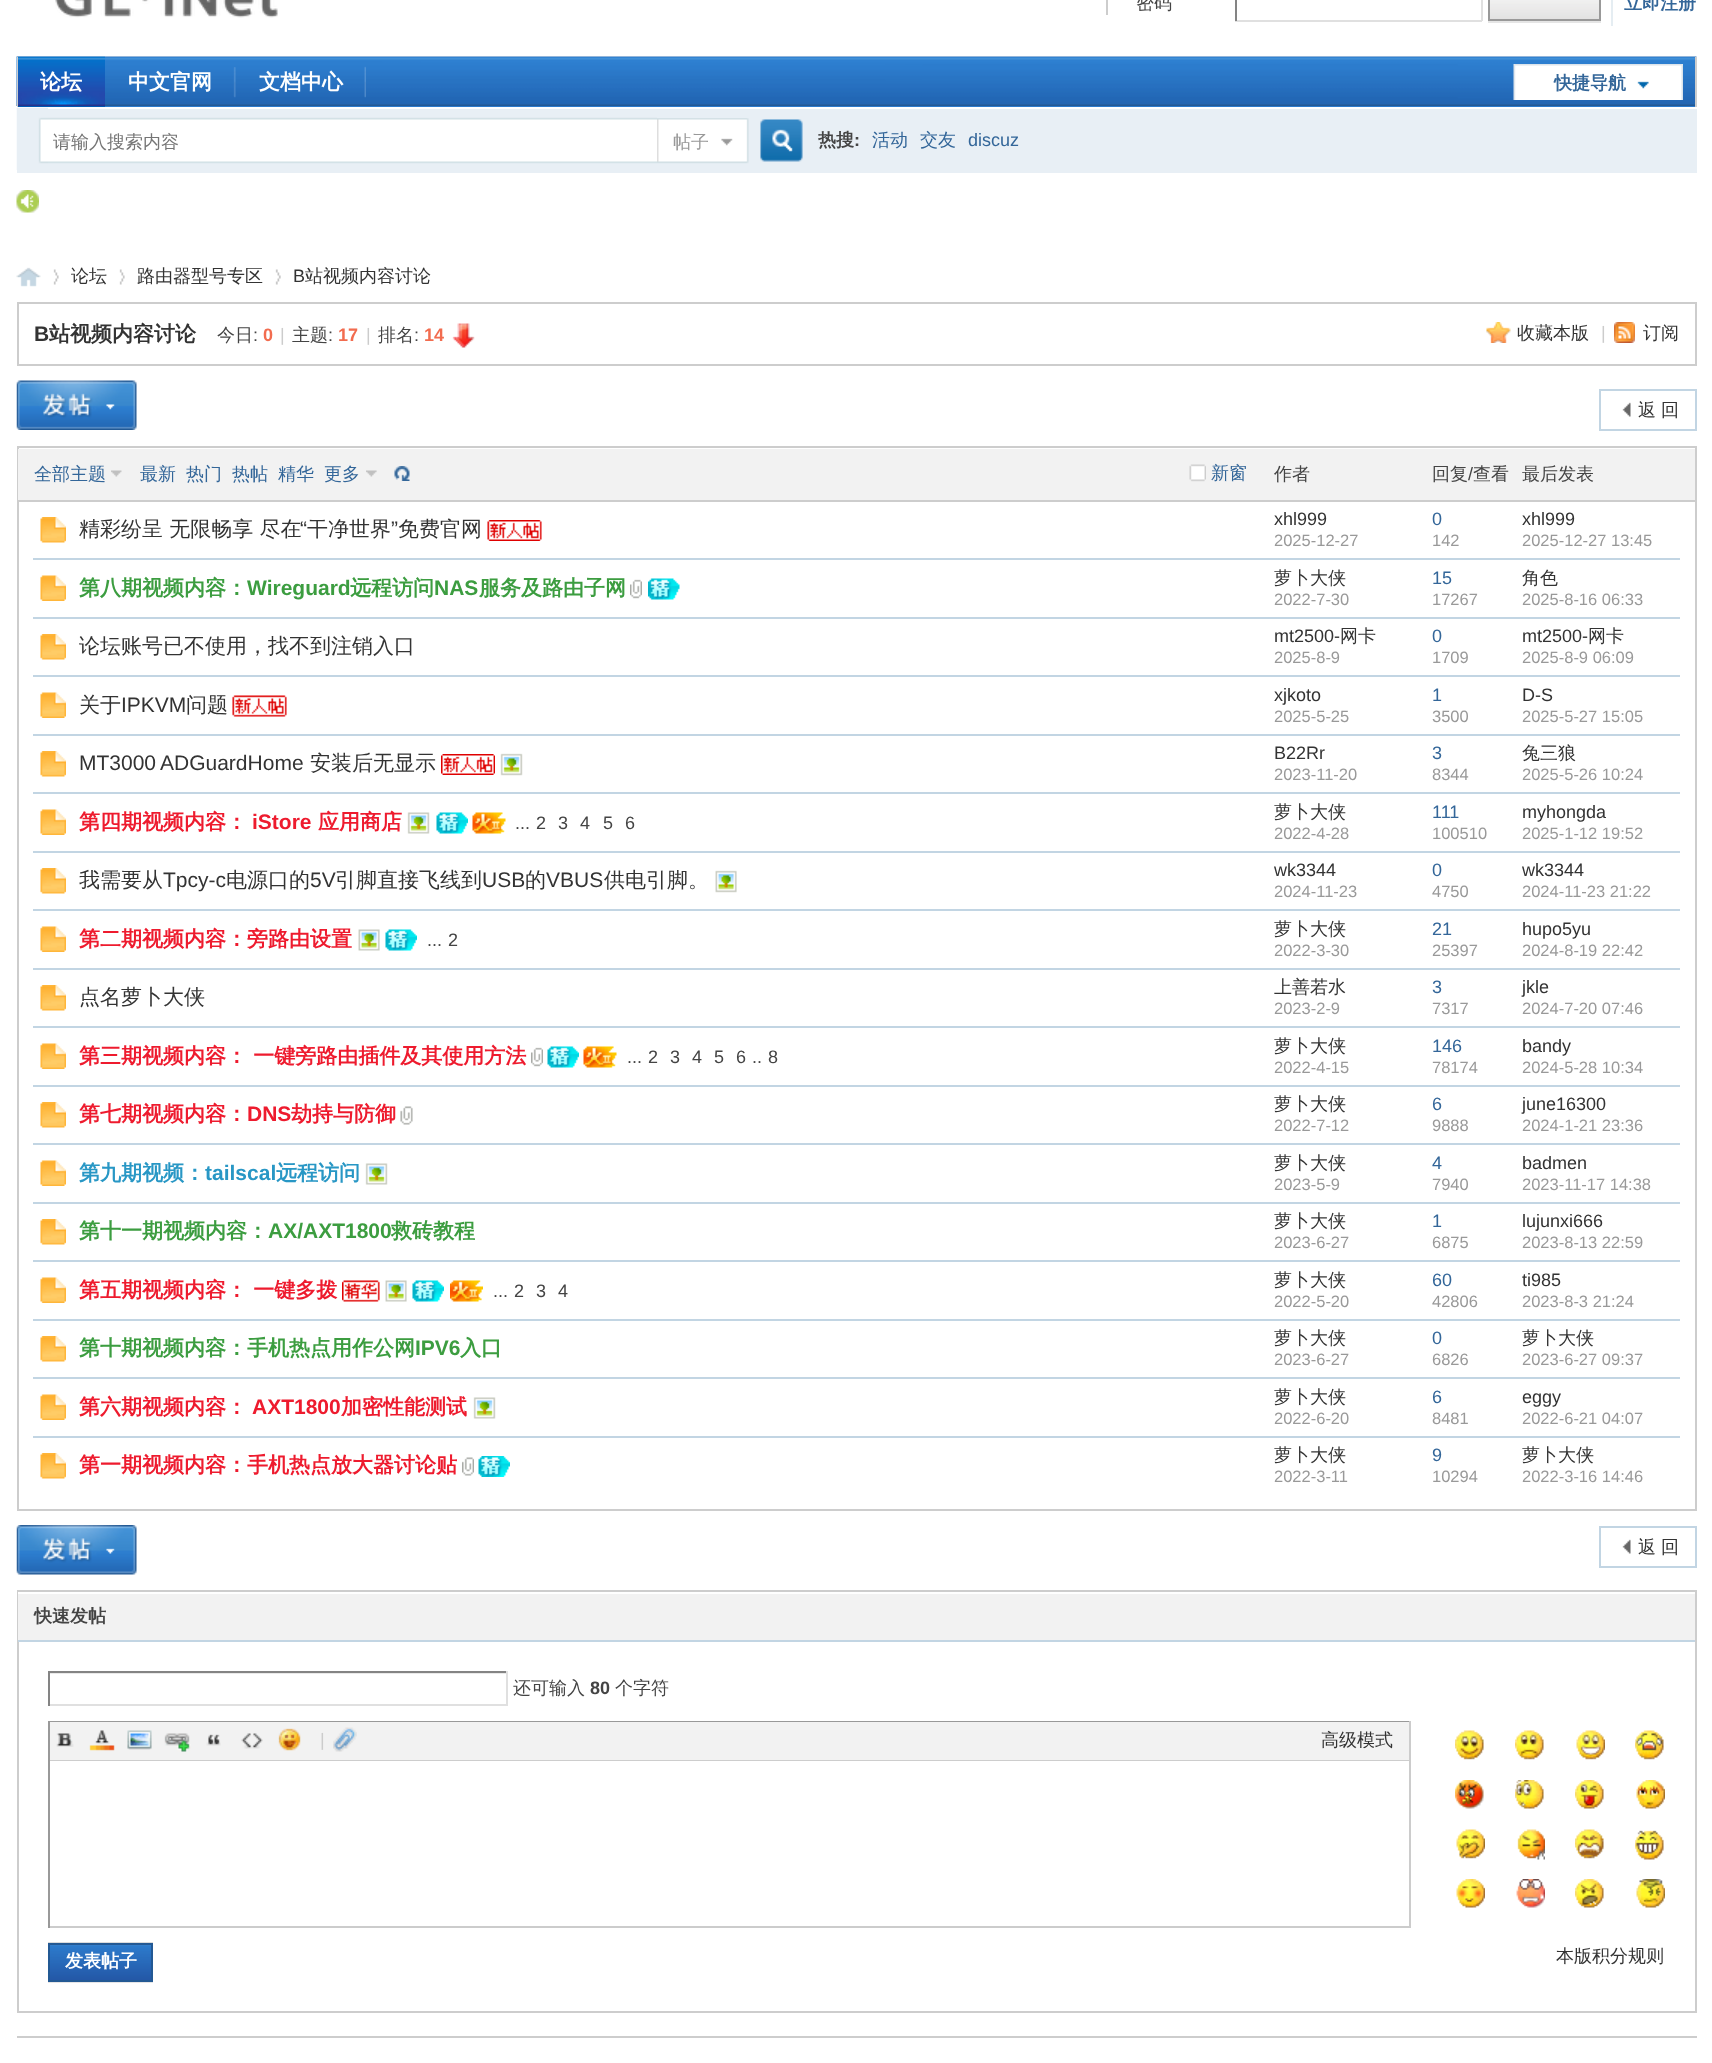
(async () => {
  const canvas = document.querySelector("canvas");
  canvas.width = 1712;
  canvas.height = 2063;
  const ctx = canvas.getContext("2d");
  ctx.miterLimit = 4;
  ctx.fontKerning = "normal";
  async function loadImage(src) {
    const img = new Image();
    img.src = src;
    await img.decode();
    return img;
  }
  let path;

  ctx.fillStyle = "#ffffff";
  ctx.fillRect(0, 0, 1712, 2063);
  ctx.drawImage(await loadImage("img/1.png"), 55, 0, 223, 18);
  for (const [x, y, w, h, color] of [
    [1106, 0, 2, 15, "#cdcdcd"],
    [1481, 0, 2, 21, "#e0e0e0"],
    [1235, 20, 247, 2, "#e0e0e0"],
    [1235, 0, 2, 21, "#848484"],
    [1611, 0, 2, 26, "#e5edf2"],
  ]) {
    ctx.fillStyle = color;
    ctx.fillRect(x, y, w, h);
  }
  ctx.fillStyle = "#e5e5e5";
  path = new Path2D("M1488 21V23H1601V-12H1600V21Z");
  ctx.fill(path);
  ctx.drawImage(await loadImage("img/2.png"), 1490, 0, 109, 19);
  ctx.strokeStyle = "#999999";
  ctx.lineWidth = 2;
  ctx.strokeRect(1489, -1, 111, 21);
  ctx.fillStyle = "#2b7acd";
  ctx.fillRect(105, 106, 1590, 1);
  ctx.drawImage(await loadImage("img/3.png"), 16, 56, 1681, 50);
  for (const [x, y, w, h, color] of [
    [1695, 57, 2, 50, "#cdcdcd"],
    [17, 57, 1, 50, "#cdcdcd"],
    [18, 106, 87, 1, "#005ab4"],
  ]) {
    ctx.fillStyle = color;
    ctx.fillRect(x, y, w, h);
  }
  ctx.drawImage(await loadImage("img/4.png"), 18, 56, 87, 50);
  ctx.drawImage(await loadImage("img/5.png"), 233, 67, 3, 31);
  ctx.drawImage(await loadImage("img/6.png"), 364, 66, 2, 32);
  ctx.drawImage(await loadImage("img/7.png"), 1513, 64, 170, 36);
  ctx.fillStyle = "#e8eff5";
  ctx.fillRect(17, 109, 1680, 64);
  ctx.drawImage(await loadImage("img/8.png"), 16, 107, 32, 63);
  ctx.drawImage(await loadImage("img/9.png"), 48, 117, 609, 47);
  ctx.drawImage(await loadImage("img/10.png"), 657, 118, 92, 46);
  ctx.drawImage(await loadImage("img/11.png"), 760, 119, 43, 43);
  ctx.drawImage(await loadImage("img/12.png"), 16, 190, 23, 23);
  ctx.drawImage(await loadImage("img/13.png"), 16, 267, 25, 20);
  ctx.drawImage(await loadImage("img/14.png"), 53, 269, 6, 16);
  ctx.drawImage(await loadImage("img/14.png"), 119, 269, 6, 16);
  ctx.drawImage(await loadImage("img/15.png"), 275, 269, 6, 16);
  ctx.strokeStyle = "#cdcdcd";
  ctx.strokeRect(18, 303, 1678, 62);
  ctx.drawImage(await loadImage("img/16.png"), 452, 323, 23, 25);
  ctx.drawImage(await loadImage("img/17.png"), 1486, 322, 25, 21);
  ctx.drawImage(await loadImage("img/18.png"), 1614, 322, 21, 21);
  ctx.drawImage(await loadImage("img/19.png"), 16, 380, 121, 50);
  ctx.drawImage(await loadImage("img/20.png"), 1622, 402, 9, 15);
  ctx.strokeStyle = "#c2d5e3";
  ctx.strokeRect(1600, 390, 96, 40);
  ctx.strokeStyle = "#cdcdcd";
  ctx.strokeRect(18, 447, 1678, 1063);
  ctx.fillStyle = "#f2f2f2";
  ctx.fillRect(18, 449, 1677, 51);
  ctx.fillStyle = "#cdcdcd";
  ctx.fillRect(18, 500, 1677, 2);
  ctx.drawImage(await loadImage("img/21.png"), 111, 470, 11, 7);
  ctx.drawImage(await loadImage("img/22.png"), 366, 470, 11, 7);
  ctx.drawImage(await loadImage("img/23.png"), 394, 466, 16, 15);
  ctx.drawImage(await loadImage("img/24.png"), 1189, 464, 17, 18);
  ctx.fillStyle = "#c2d5e3";
  ctx.fillRect(33, 558, 1647, 2);
  ctx.drawImage(await loadImage("img/25.png"), 40, 517, 26, 26);
  ctx.drawImage(await loadImage("img/26.png"), 487, 520, 55, 21);
  ctx.fillRect(33, 617, 1647, 2);
  ctx.drawImage(await loadImage("img/27.png"), 40, 575, 26, 26);
  ctx.drawImage(await loadImage("img/28.png"), 630, 579, 12, 20);
  ctx.drawImage(await loadImage("img/29.png"), 648, 578, 32, 22);
  ctx.fillRect(33, 675, 1647, 2);
  ctx.drawImage(await loadImage("img/25.png"), 40, 634, 26, 26);
  ctx.fillRect(33, 734, 1647, 2);
  ctx.drawImage(await loadImage("img/27.png"), 40, 692, 26, 26);
  ctx.drawImage(await loadImage("img/30.png"), 232, 695, 55, 22);
  ctx.fillRect(33, 792, 1647, 2);
  ctx.drawImage(await loadImage("img/25.png"), 40, 751, 26, 26);
  ctx.drawImage(await loadImage("img/31.png"), 441, 754, 54, 21);
  ctx.drawImage(await loadImage("img/32.png"), 500, 753, 23, 23);
  ctx.fillRect(33, 851, 1647, 2);
  ctx.drawImage(await loadImage("img/27.png"), 40, 809, 26, 26);
  ctx.drawImage(await loadImage("img/33.png"), 407, 812, 23, 22);
  ctx.drawImage(await loadImage("img/34.png"), 436, 812, 32, 22);
  ctx.drawImage(await loadImage("img/35.png"), 472, 812, 34, 22);
  ctx.fillRect(33, 909, 1647, 2);
  ctx.drawImage(await loadImage("img/25.png"), 40, 868, 26, 26);
  ctx.drawImage(await loadImage("img/36.png"), 715, 870, 22, 23);
  ctx.fillRect(33, 968, 1647, 2);
  ctx.drawImage(await loadImage("img/27.png"), 40, 926, 26, 26);
  ctx.drawImage(await loadImage("img/37.png"), 358, 929, 22, 22);
  ctx.drawImage(await loadImage("img/34.png"), 385, 929, 32, 22);
  ctx.fillRect(33, 1026, 1647, 2);
  ctx.drawImage(await loadImage("img/25.png"), 40, 985, 26, 26);
  ctx.fillRect(33, 1085, 1647, 2);
  ctx.drawImage(await loadImage("img/27.png"), 40, 1043, 26, 26);
  ctx.drawImage(await loadImage("img/38.png"), 531, 1047, 12, 20);
  ctx.drawImage(await loadImage("img/34.png"), 547, 1046, 32, 22);
  ctx.drawImage(await loadImage("img/39.png"), 583, 1046, 34, 22);
  ctx.fillRect(33, 1143, 1647, 2);
  ctx.drawImage(await loadImage("img/25.png"), 40, 1102, 26, 26);
  ctx.drawImage(await loadImage("img/40.png"), 400, 1106, 13, 19);
  ctx.fillRect(33, 1202, 1647, 2);
  ctx.drawImage(await loadImage("img/27.png"), 40, 1160, 26, 26);
  ctx.drawImage(await loadImage("img/33.png"), 365, 1163, 23, 22);
  ctx.fillRect(33, 1260, 1647, 2);
  ctx.drawImage(await loadImage("img/25.png"), 40, 1219, 26, 26);
  ctx.fillRect(33, 1319, 1647, 2);
  ctx.drawImage(await loadImage("img/27.png"), 40, 1277, 26, 26);
  ctx.drawImage(await loadImage("img/41.png"), 342, 1280, 38, 22);
  ctx.drawImage(await loadImage("img/37.png"), 385, 1280, 22, 22);
  ctx.drawImage(await loadImage("img/34.png"), 412, 1280, 32, 22);
  ctx.drawImage(await loadImage("img/42.png"), 450, 1280, 33, 22);
  ctx.fillRect(33, 1377, 1647, 2);
  ctx.drawImage(await loadImage("img/25.png"), 40, 1336, 26, 26);
  ctx.fillRect(33, 1436, 1647, 2);
  ctx.drawImage(await loadImage("img/27.png"), 40, 1394, 26, 26);
  ctx.drawImage(await loadImage("img/43.png"), 473, 1397, 23, 22);
  ctx.drawImage(await loadImage("img/25.png"), 40, 1453, 26, 26);
  ctx.drawImage(await loadImage("img/44.png"), 462, 1457, 12, 19);
  ctx.drawImage(await loadImage("img/45.png"), 478, 1456, 32, 21);
  ctx.drawImage(await loadImage("img/46.png"), 16, 1525, 121, 50);
  ctx.drawImage(await loadImage("img/20.png"), 1622, 1539, 9, 15);
  ctx.strokeStyle = "#c2d5e3";
  ctx.strokeRect(1600, 1527, 96, 40);
  ctx.strokeStyle = "#cdcdcd";
  ctx.strokeRect(18, 1591, 1678, 421);
  for (const [x, y, w, h, color] of [
    [18, 1594, 1677, 46, "#f2f2f2"],
    [18, 1592, 1, 2, "#ffffff"],
    [18, 1640, 1677, 2, "#c2d5e3"],
  ]) {
    ctx.fillStyle = color;
    ctx.fillRect(x, y, w, h);
  }
  ctx.drawImage(await loadImage("img/47.png"), 50, 1673, 456, 1);
  for (const [x, y, w, h, color] of [
    [48, 1671, 459, 2, "#848484"],
    [506, 1671, 2, 35, "#e0e0e0"],
    [48, 1704, 459, 2, "#e0e0e0"],
    [48, 1671, 2, 35, "#848484"],
    [48, 1721, 1362, 1, "#999999"],
    [1409, 1721, 2, 207, "#cccccc"],
    [48, 1926, 1362, 2, "#cccccc"],
    [48, 1721, 2, 207, "#999999"],
    [50, 1722, 1359, 38, "#f2f2f2"],
    [50, 1760, 1359, 1, "#cdcdcd"],
  ]) {
    ctx.fillStyle = color;
    ctx.fillRect(x, y, w, h);
  }
  ctx.drawImage(await loadImage("img/48.png"), 56, 1733, 18, 14);
  ctx.drawImage(await loadImage("img/49.png"), 89, 1730, 26, 21);
  ctx.drawImage(await loadImage("img/50.png"), 127, 1730, 25, 20);
  ctx.drawImage(await loadImage("img/51.png"), 164, 1733, 27, 19);
  ctx.drawImage(await loadImage("img/52.png"), 206, 1734, 15, 12);
  ctx.drawImage(await loadImage("img/53.png"), 241, 1733, 22, 16);
  ctx.drawImage(await loadImage("img/54.png"), 278, 1728, 23, 23);
  ctx.drawImage(await loadImage("img/55.png"), 333, 1727, 24, 25);
  ctx.drawImage(await loadImage("img/56.png"), 1455, 1730, 29, 30);
  ctx.drawImage(await loadImage("img/57.png"), 1515, 1730, 29, 30);
  ctx.drawImage(await loadImage("img/58.png"), 1576, 1730, 29, 30);
  ctx.drawImage(await loadImage("img/59.png"), 1635, 1730, 29, 30);
  ctx.drawImage(await loadImage("img/60.png"), 1455, 1780, 29, 29);
  ctx.drawImage(await loadImage("img/61.png"), 1515, 1780, 29, 29);
  ctx.drawImage(await loadImage("img/62.png"), 1575, 1780, 29, 29);
  ctx.drawImage(await loadImage("img/63.png"), 1636, 1780, 29, 29);
  ctx.drawImage(await loadImage("img/64.png"), 1456, 1829, 29, 30);
  ctx.drawImage(await loadImage("img/65.png"), 1517, 1829, 28, 31);
  ctx.drawImage(await loadImage("img/66.png"), 1575, 1829, 29, 30);
  ctx.drawImage(await loadImage("img/67.png"), 1635, 1830, 29, 30);
  ctx.drawImage(await loadImage("img/68.png"), 1456, 1879, 29, 29);
  ctx.drawImage(await loadImage("img/69.png"), 1516, 1879, 29, 29);
  ctx.drawImage(await loadImage("img/70.png"), 1575, 1879, 29, 29);
  ctx.drawImage(await loadImage("img/71.png"), 1636, 1879, 29, 29);
  ctx.fillStyle = "#e5e5e5";
  ctx.fillRect(48, 1982, 105, 1);
  ctx.drawImage(await loadImage("img/72.png"), 48, 1942, 105, 38);
  ctx.strokeStyle = "#235994";
  ctx.strokeRect(49, 1944, 103, 37);
  ctx.fillStyle = "#cdcdcd";
  ctx.fillRect(17, 2036, 1680, 2);
  ctx.font = "500 18px WenQuanYi Zen Hei";
  ctx.fillStyle = "#444444";
  ctx.fillText("密码", 1136, 9);
  ctx.font = "bold 18px WenQuanYi Zen Hei";
  ctx.fillStyle = "#336699";
  ctx.fillText("立即注册", 1624, 9);
  ctx.font = "bold 21px WenQuanYi Zen Hei";
  ctx.fillStyle = "#ffffff";
  for (const [text, x, y] of [
    ["论坛", 40, 89],
    ["中文官网", 128, 89],
    ["文档中心", 259, 89],
  ]) {
    ctx.fillText(text, x, y);
  }
  ctx.font = "bold 18px WenQuanYi Zen Hei";
  ctx.fillStyle = "#336699";
  ctx.fillText("快捷导航", 1554, 89);
  ctx.font = "500 18px WenQuanYi Zen Hei";
  ctx.fillStyle = "#757575";
  ctx.fillText("请输入搜索内容", 53, 148);
  ctx.fillStyle = "#999999";
  ctx.fillText("帖子", 673, 148);
  ctx.font = "bold 18px WenQuanYi Zen Hei";
  ctx.fillStyle = "#444444";
  ctx.fillText("热搜", 818, 146);
  ctx.font = "bold 18px Liberation Sans";
  ctx.fillText(":", 854, 146);
  ctx.font = "500 18px WenQuanYi Zen Hei";
  ctx.fillStyle = "#336699";
  ctx.fillText("活动", 872, 146);
  ctx.fillText("交友", 920, 146);
  ctx.font = "18px Liberation Sans";
  ctx.fillText("discuz", 968, 146);
  ctx.font = "500 18px WenQuanYi Zen Hei";
  ctx.fillStyle = "#333333";
  ctx.fillText("论坛", 71, 282);
  ctx.fillText("路由器型号专区", 137, 282);
  ctx.font = "18px Liberation Sans";
  ctx.fillText("B", 293, 282);
  ctx.font = "500 18px WenQuanYi Zen Hei";
  ctx.fillText("站视频内容讨论", 305, 282);
  ctx.font = "bold 21px Liberation Sans";
  ctx.fillText("B", 34, 341);
  ctx.font = "bold 21px WenQuanYi Zen Hei";
  ctx.fillText("站视频内容讨论", 49, 341);
  ctx.font = "500 18px WenQuanYi Zen Hei";
  ctx.fillStyle = "#444444";
  ctx.fillText("今日", 217, 341);
  ctx.font = "18px Liberation Sans";
  ctx.fillText(":", 253, 341);
  ctx.font = "bold 18px Liberation Sans";
  ctx.fillStyle = "#f26c4f";
  ctx.fillText("0", 263, 341);
  ctx.font = "18px Liberation Sans";
  ctx.fillStyle = "#cccccc";
  ctx.fillText("|", 280, 341);
  ctx.font = "500 18px WenQuanYi Zen Hei";
  ctx.fillStyle = "#444444";
  ctx.fillText("主题", 292, 341);
  ctx.font = "18px Liberation Sans";
  ctx.fillText(":", 328, 341);
  ctx.font = "bold 18px Liberation Sans";
  ctx.fillStyle = "#f26c4f";
  ctx.fillText("17", 338, 341);
  ctx.font = "18px Liberation Sans";
  ctx.fillStyle = "#cccccc";
  ctx.fillText("|", 366, 341);
  ctx.font = "500 18px WenQuanYi Zen Hei";
  ctx.fillStyle = "#444444";
  ctx.fillText("排名", 378, 341);
  ctx.font = "18px Liberation Sans";
  ctx.fillText(":", 414, 341);
  ctx.font = "bold 18px Liberation Sans";
  ctx.fillStyle = "#f26c4f";
  ctx.fillText("14", 424, 341);
  ctx.font = "500 18px WenQuanYi Zen Hei";
  ctx.fillStyle = "#333333";
  ctx.fillText("收藏本版", 1517, 339);
  ctx.font = "18px Liberation Sans";
  ctx.fillStyle = "#cccccc";
  ctx.fillText("|", 1601, 339);
  ctx.font = "500 18px WenQuanYi Zen Hei";
  ctx.fillStyle = "#333333";
  for (const [text, x, y] of [
    ["订阅", 1643, 339],
    ["返", 1638, 416],
    ["回", 1661, 416],
  ]) {
    ctx.fillText(text, x, y);
  }
  ctx.fillStyle = "#336699";
  for (const [text, x, y] of [
    ["全部主题", 34, 480],
    ["最新", 140, 480],
    ["热门", 186, 480],
    ["热帖", 232, 480],
    ["精华", 278, 480],
    ["更多", 324, 480],
    ["新窗", 1211, 479],
  ]) {
    ctx.fillText(text, x, y);
  }
  ctx.fillStyle = "#444444";
  ctx.fillText("作者", 1274, 480);
  ctx.fillText("回复", 1432, 480);
  ctx.font = "18px Liberation Sans";
  ctx.fillText("/", 1468, 480);
  ctx.font = "500 18px WenQuanYi Zen Hei";
  ctx.fillText("查看", 1473, 480);
  ctx.fillText("最后发表", 1522, 480);
  ctx.font = "18px Liberation Sans";
  ctx.fillStyle = "#333333";
  ctx.fillText("xhl999", 1274, 525);
  ctx.font = "16.5px Liberation Sans";
  ctx.fillStyle = "#999999";
  ctx.fillText("2025-12-27", 1274, 546);
  ctx.font = "18px Liberation Sans";
  ctx.fillStyle = "#336699";
  ctx.fillText("0", 1432, 525);
  ctx.font = "16.5px Liberation Sans";
  ctx.fillStyle = "#999999";
  ctx.fillText("142", 1432, 546);
  ctx.font = "18px Liberation Sans";
  ctx.fillStyle = "#333333";
  ctx.fillText("xhl999", 1522, 525);
  ctx.font = "16.5px Liberation Sans";
  ctx.fillStyle = "#999999";
  ctx.fillText("2025-12-27 13:45", 1522, 546);
  ctx.font = "500 21px WenQuanYi Zen Hei";
  ctx.fillStyle = "#333333";
  ctx.fillText("精彩纷呈 无限畅享 尽在", 79, 536);
  ctx.font = "21px Liberation Sans";
  ctx.fillText("“", 300, 536);
  ctx.font = "500 21px WenQuanYi Zen Hei";
  ctx.fillText("干净世界", 307, 536);
  ctx.font = "21px Liberation Sans";
  ctx.fillText("”", 391, 536);
  ctx.font = "500 21px WenQuanYi Zen Hei";
  ctx.fillText("免费官网", 398, 536);
  ctx.font = "500 18px WenQuanYi Zen Hei";
  ctx.fillText("萝卜大侠", 1274, 584);
  ctx.font = "16.5px Liberation Sans";
  ctx.fillStyle = "#999999";
  ctx.fillText("2022-7-30", 1274, 605);
  ctx.font = "18px Liberation Sans";
  ctx.fillStyle = "#336699";
  ctx.fillText("15", 1432, 584);
  ctx.font = "16.5px Liberation Sans";
  ctx.fillStyle = "#999999";
  ctx.fillText("17267", 1432, 605);
  ctx.font = "500 18px WenQuanYi Zen Hei";
  ctx.fillStyle = "#333333";
  ctx.fillText("角色", 1522, 584);
  ctx.font = "16.5px Liberation Sans";
  ctx.fillStyle = "#999999";
  ctx.fillText("2025-8-16 06:33", 1522, 605);
  ctx.font = "bold 21px WenQuanYi Zen Hei";
  ctx.fillStyle = "#3c9d40";
  ctx.fillText("第八期视频内容：", 79, 595);
  ctx.font = "bold 21px Liberation Sans";
  ctx.fillText("Wireguard", 247, 595);
  ctx.font = "bold 21px WenQuanYi Zen Hei";
  ctx.fillText("远程访问", 350, 595);
  ctx.font = "bold 21px Liberation Sans";
  ctx.fillText("NAS", 434, 595);
  ctx.font = "bold 21px WenQuanYi Zen Hei";
  ctx.fillText("服务及路由子网", 479, 595);
  ctx.font = "18px Liberation Sans";
  ctx.fillStyle = "#333333";
  ctx.fillText("mt2500-", 1274, 642);
  ctx.font = "500 18px WenQuanYi Zen Hei";
  ctx.fillText("网卡", 1340, 642);
  ctx.font = "16.5px Liberation Sans";
  ctx.fillStyle = "#999999";
  ctx.fillText("2025-8-9", 1274, 663);
  ctx.font = "18px Liberation Sans";
  ctx.fillStyle = "#336699";
  ctx.fillText("0", 1432, 642);
  ctx.font = "16.5px Liberation Sans";
  ctx.fillStyle = "#999999";
  ctx.fillText("1709", 1432, 663);
  ctx.font = "18px Liberation Sans";
  ctx.fillStyle = "#333333";
  ctx.fillText("mt2500-", 1522, 642);
  ctx.font = "500 18px WenQuanYi Zen Hei";
  ctx.fillText("网卡", 1588, 642);
  ctx.font = "16.5px Liberation Sans";
  ctx.fillStyle = "#999999";
  ctx.fillText("2025-8-9 06:09", 1522, 663);
  ctx.font = "500 21px WenQuanYi Zen Hei";
  ctx.fillStyle = "#333333";
  ctx.fillText("论坛账号已不使用，找不到注销入口", 79, 653);
  ctx.font = "18px Liberation Sans";
  ctx.fillText("xjkoto", 1274, 701);
  ctx.font = "16.5px Liberation Sans";
  ctx.fillStyle = "#999999";
  ctx.fillText("2025-5-25", 1274, 722);
  ctx.font = "18px Liberation Sans";
  ctx.fillStyle = "#336699";
  ctx.fillText("1", 1432, 701);
  ctx.font = "16.5px Liberation Sans";
  ctx.fillStyle = "#999999";
  ctx.fillText("3500", 1432, 722);
  ctx.font = "18px Liberation Sans";
  ctx.fillStyle = "#333333";
  ctx.fillText("D-S", 1522, 701);
  ctx.font = "16.5px Liberation Sans";
  ctx.fillStyle = "#999999";
  ctx.fillText("2025-5-27 15:05", 1522, 722);
  ctx.font = "500 21px WenQuanYi Zen Hei";
  ctx.fillStyle = "#333333";
  ctx.fillText("关于", 79, 712);
  ctx.font = "21px Liberation Sans";
  ctx.fillText("IPKVM", 121, 712);
  ctx.font = "500 21px WenQuanYi Zen Hei";
  ctx.fillText("问题", 186, 712);
  ctx.font = "18px Liberation Sans";
  ctx.fillText("B22Rr", 1274, 759);
  ctx.font = "16.5px Liberation Sans";
  ctx.fillStyle = "#999999";
  ctx.fillText("2023-11-20", 1274, 780);
  ctx.font = "18px Liberation Sans";
  ctx.fillStyle = "#336699";
  ctx.fillText("3", 1432, 759);
  ctx.font = "16.5px Liberation Sans";
  ctx.fillStyle = "#999999";
  ctx.fillText("8344", 1432, 780);
  ctx.font = "500 18px WenQuanYi Zen Hei";
  ctx.fillStyle = "#333333";
  ctx.fillText("兔三狼", 1522, 759);
  ctx.font = "16.5px Liberation Sans";
  ctx.fillStyle = "#999999";
  ctx.fillText("2025-5-26 10:24", 1522, 780);
  ctx.font = "21px Liberation Sans";
  ctx.fillStyle = "#333333";
  ctx.fillText("MT3000", 79, 770);
  ctx.fillText("ADGuardHome", 160, 770);
  ctx.font = "500 21px WenQuanYi Zen Hei";
  ctx.fillText("安装后无显示", 310, 770);
  ctx.font = "500 18px WenQuanYi Zen Hei";
  ctx.fillText("萝卜大侠", 1274, 818);
  ctx.font = "16.5px Liberation Sans";
  ctx.fillStyle = "#999999";
  ctx.fillText("2022-4-28", 1274, 839);
  ctx.font = "18px Liberation Sans";
  ctx.fillStyle = "#336699";
  ctx.fillText("111", 1432, 818);
  ctx.font = "16.5px Liberation Sans";
  ctx.fillStyle = "#999999";
  ctx.fillText("100510", 1432, 839);
  ctx.font = "18px Liberation Sans";
  ctx.fillStyle = "#333333";
  ctx.fillText("myhongda", 1522, 818);
  ctx.font = "16.5px Liberation Sans";
  ctx.fillStyle = "#999999";
  ctx.fillText("2025-1-12 19:52", 1522, 839);
  ctx.font = "bold 21px WenQuanYi Zen Hei";
  ctx.fillStyle = "#ee1b2e";
  ctx.fillText("第四期视频内容：", 79, 829);
  ctx.font = "bold 21px Liberation Sans";
  ctx.fillText("iStore", 252, 829);
  ctx.font = "bold 21px WenQuanYi Zen Hei";
  ctx.fillText("应用商店", 318, 829);
  ctx.font = "18px Liberation Sans";
  ctx.fillStyle = "#444444";
  for (const [text, x, y] of [
    ["...", 515, 829],
    ["2", 536, 829],
    ["3", 558, 829],
    ["4", 580, 829],
    ["5", 603, 829],
    ["6", 625, 829],
  ]) {
    ctx.fillText(text, x, y);
  }
  ctx.fillStyle = "#333333";
  ctx.fillText("wk3344", 1274, 876);
  ctx.font = "16.5px Liberation Sans";
  ctx.fillStyle = "#999999";
  ctx.fillText("2024-11-23", 1274, 897);
  ctx.font = "18px Liberation Sans";
  ctx.fillStyle = "#336699";
  ctx.fillText("0", 1432, 876);
  ctx.font = "16.5px Liberation Sans";
  ctx.fillStyle = "#999999";
  ctx.fillText("4750", 1432, 897);
  ctx.font = "18px Liberation Sans";
  ctx.fillStyle = "#333333";
  ctx.fillText("wk3344", 1522, 876);
  ctx.font = "16.5px Liberation Sans";
  ctx.fillStyle = "#999999";
  ctx.fillText("2024-11-23 21:22", 1522, 897);
  ctx.font = "500 21px WenQuanYi Zen Hei";
  ctx.fillStyle = "#333333";
  ctx.fillText("我需要从", 79, 887);
  ctx.font = "21px Liberation Sans";
  ctx.fillText("Tpcy-c", 163, 887);
  ctx.font = "500 21px WenQuanYi Zen Hei";
  ctx.fillText("电源口的", 226, 887);
  ctx.font = "21px Liberation Sans";
  ctx.fillText("5V", 310, 887);
  ctx.font = "500 21px WenQuanYi Zen Hei";
  ctx.fillText("引脚直接飞线到", 335, 887);
  ctx.font = "21px Liberation Sans";
  ctx.fillText("USB", 482, 887);
  ctx.font = "500 21px WenQuanYi Zen Hei";
  ctx.fillText("的", 525, 887);
  ctx.font = "21px Liberation Sans";
  ctx.fillText("VBUS", 546, 887);
  ctx.font = "500 21px WenQuanYi Zen Hei";
  ctx.fillText("供电引脚。", 604, 887);
  ctx.font = "500 18px WenQuanYi Zen Hei";
  ctx.fillText("萝卜大侠", 1274, 935);
  ctx.font = "16.5px Liberation Sans";
  ctx.fillStyle = "#999999";
  ctx.fillText("2022-3-30", 1274, 956);
  ctx.font = "18px Liberation Sans";
  ctx.fillStyle = "#336699";
  ctx.fillText("21", 1432, 935);
  ctx.font = "16.5px Liberation Sans";
  ctx.fillStyle = "#999999";
  ctx.fillText("25397", 1432, 956);
  ctx.font = "18px Liberation Sans";
  ctx.fillStyle = "#333333";
  ctx.fillText("hupo5yu", 1522, 935);
  ctx.font = "16.5px Liberation Sans";
  ctx.fillStyle = "#999999";
  ctx.fillText("2024-8-19 22:42", 1522, 956);
  ctx.font = "bold 21px WenQuanYi Zen Hei";
  ctx.fillStyle = "#ee1b2e";
  ctx.fillText("第二期视频内容：旁路由设置", 79, 946);
  ctx.font = "18px Liberation Sans";
  ctx.fillStyle = "#444444";
  ctx.fillText("...", 427, 946);
  ctx.fillText("2", 448, 946);
  ctx.font = "500 18px WenQuanYi Zen Hei";
  ctx.fillStyle = "#333333";
  ctx.fillText("上善若水", 1274, 993);
  ctx.font = "16.5px Liberation Sans";
  ctx.fillStyle = "#999999";
  ctx.fillText("2023-2-9", 1274, 1014);
  ctx.font = "18px Liberation Sans";
  ctx.fillStyle = "#336699";
  ctx.fillText("3", 1432, 993);
  ctx.font = "16.5px Liberation Sans";
  ctx.fillStyle = "#999999";
  ctx.fillText("7317", 1432, 1014);
  ctx.font = "18px Liberation Sans";
  ctx.fillStyle = "#333333";
  ctx.fillText("jkle", 1522, 993);
  ctx.font = "16.5px Liberation Sans";
  ctx.fillStyle = "#999999";
  ctx.fillText("2024-7-20 07:46", 1522, 1014);
  ctx.font = "500 21px WenQuanYi Zen Hei";
  ctx.fillStyle = "#333333";
  ctx.fillText("点名萝卜大侠", 79, 1004);
  ctx.font = "500 18px WenQuanYi Zen Hei";
  ctx.fillText("萝卜大侠", 1274, 1052);
  ctx.font = "16.5px Liberation Sans";
  ctx.fillStyle = "#999999";
  ctx.fillText("2022-4-15", 1274, 1073);
  ctx.font = "18px Liberation Sans";
  ctx.fillStyle = "#336699";
  ctx.fillText("146", 1432, 1052);
  ctx.font = "16.5px Liberation Sans";
  ctx.fillStyle = "#999999";
  ctx.fillText("78174", 1432, 1073);
  ctx.font = "18px Liberation Sans";
  ctx.fillStyle = "#333333";
  ctx.fillText("bandy", 1522, 1052);
  ctx.font = "16.5px Liberation Sans";
  ctx.fillStyle = "#999999";
  ctx.fillText("2024-5-28 10:34", 1522, 1073);
  ctx.font = "bold 21px WenQuanYi Zen Hei";
  ctx.fillStyle = "#ee1b2e";
  ctx.fillText("第三期视频内容： 一键旁路由插件及其使用方法", 79, 1063);
  ctx.font = "18px Liberation Sans";
  ctx.fillStyle = "#444444";
  for (const [text, x, y] of [
    ["...", 627, 1063],
    ["2", 648, 1063],
    ["3", 670, 1063],
    ["4", 692, 1063],
    ["5", 714, 1063],
    ["6", 736, 1063],
    ["..", 752, 1063],
    ["8", 768, 1063],
  ]) {
    ctx.fillText(text, x, y);
  }
  ctx.font = "500 18px WenQuanYi Zen Hei";
  ctx.fillStyle = "#333333";
  ctx.fillText("萝卜大侠", 1274, 1110);
  ctx.font = "16.5px Liberation Sans";
  ctx.fillStyle = "#999999";
  ctx.fillText("2022-7-12", 1274, 1131);
  ctx.font = "18px Liberation Sans";
  ctx.fillStyle = "#336699";
  ctx.fillText("6", 1432, 1110);
  ctx.font = "16.5px Liberation Sans";
  ctx.fillStyle = "#999999";
  ctx.fillText("9888", 1432, 1131);
  ctx.font = "18px Liberation Sans";
  ctx.fillStyle = "#333333";
  ctx.fillText("june16300", 1522, 1110);
  ctx.font = "16.5px Liberation Sans";
  ctx.fillStyle = "#999999";
  ctx.fillText("2024-1-21 23:36", 1522, 1131);
  ctx.font = "bold 21px WenQuanYi Zen Hei";
  ctx.fillStyle = "#ee1b2e";
  ctx.fillText("第七期视频内容：", 79, 1121);
  ctx.font = "bold 21px Liberation Sans";
  ctx.fillText("DNS", 247, 1121);
  ctx.font = "bold 21px WenQuanYi Zen Hei";
  ctx.fillText("劫持与防御", 291, 1121);
  ctx.font = "500 18px WenQuanYi Zen Hei";
  ctx.fillStyle = "#333333";
  ctx.fillText("萝卜大侠", 1274, 1169);
  ctx.font = "16.5px Liberation Sans";
  ctx.fillStyle = "#999999";
  ctx.fillText("2023-5-9", 1274, 1190);
  ctx.font = "18px Liberation Sans";
  ctx.fillStyle = "#336699";
  ctx.fillText("4", 1432, 1169);
  ctx.font = "16.5px Liberation Sans";
  ctx.fillStyle = "#999999";
  ctx.fillText("7940", 1432, 1190);
  ctx.font = "18px Liberation Sans";
  ctx.fillStyle = "#333333";
  ctx.fillText("badmen", 1522, 1169);
  ctx.font = "16.5px Liberation Sans";
  ctx.fillStyle = "#999999";
  ctx.fillText("2023-11-17 14:38", 1522, 1190);
  ctx.font = "bold 21px WenQuanYi Zen Hei";
  ctx.fillStyle = "#2897c5";
  ctx.fillText("第九期视频：", 79, 1180);
  ctx.font = "bold 21px Liberation Sans";
  ctx.fillText("tailscal", 205, 1180);
  ctx.font = "bold 21px WenQuanYi Zen Hei";
  ctx.fillText("远程访问", 276, 1180);
  ctx.font = "500 18px WenQuanYi Zen Hei";
  ctx.fillStyle = "#333333";
  ctx.fillText("萝卜大侠", 1274, 1227);
  ctx.font = "16.5px Liberation Sans";
  ctx.fillStyle = "#999999";
  ctx.fillText("2023-6-27", 1274, 1248);
  ctx.font = "18px Liberation Sans";
  ctx.fillStyle = "#336699";
  ctx.fillText("1", 1432, 1227);
  ctx.font = "16.5px Liberation Sans";
  ctx.fillStyle = "#999999";
  ctx.fillText("6875", 1432, 1248);
  ctx.font = "18px Liberation Sans";
  ctx.fillStyle = "#333333";
  ctx.fillText("lujunxi666", 1522, 1227);
  ctx.font = "16.5px Liberation Sans";
  ctx.fillStyle = "#999999";
  ctx.fillText("2023-8-13 22:59", 1522, 1248);
  ctx.font = "bold 21px WenQuanYi Zen Hei";
  ctx.fillStyle = "#3c9d40";
  ctx.fillText("第十一期视频内容：", 79, 1238);
  ctx.font = "bold 21px Liberation Sans";
  ctx.fillText("AX/AXT1800", 268, 1238);
  ctx.font = "bold 21px WenQuanYi Zen Hei";
  ctx.fillText("救砖教程", 391, 1238);
  ctx.font = "500 18px WenQuanYi Zen Hei";
  ctx.fillStyle = "#333333";
  ctx.fillText("萝卜大侠", 1274, 1286);
  ctx.font = "16.5px Liberation Sans";
  ctx.fillStyle = "#999999";
  ctx.fillText("2022-5-20", 1274, 1307);
  ctx.font = "18px Liberation Sans";
  ctx.fillStyle = "#336699";
  ctx.fillText("60", 1432, 1286);
  ctx.font = "16.5px Liberation Sans";
  ctx.fillStyle = "#999999";
  ctx.fillText("42806", 1432, 1307);
  ctx.font = "18px Liberation Sans";
  ctx.fillStyle = "#333333";
  ctx.fillText("ti985", 1522, 1286);
  ctx.font = "16.5px Liberation Sans";
  ctx.fillStyle = "#999999";
  ctx.fillText("2023-8-3 21:24", 1522, 1307);
  ctx.font = "bold 21px WenQuanYi Zen Hei";
  ctx.fillStyle = "#ee1b2e";
  ctx.fillText("第五期视频内容： 一键多拨", 79, 1297);
  ctx.font = "18px Liberation Sans";
  ctx.fillStyle = "#444444";
  for (const [text, x, y] of [
    ["...", 493, 1297],
    ["2", 514, 1297],
    ["3", 536, 1297],
    ["4", 558, 1297],
  ]) {
    ctx.fillText(text, x, y);
  }
  ctx.font = "500 18px WenQuanYi Zen Hei";
  ctx.fillStyle = "#333333";
  ctx.fillText("萝卜大侠", 1274, 1344);
  ctx.font = "16.5px Liberation Sans";
  ctx.fillStyle = "#999999";
  ctx.fillText("2023-6-27", 1274, 1365);
  ctx.font = "18px Liberation Sans";
  ctx.fillStyle = "#336699";
  ctx.fillText("0", 1432, 1344);
  ctx.font = "16.5px Liberation Sans";
  ctx.fillStyle = "#999999";
  ctx.fillText("6826", 1432, 1365);
  ctx.font = "500 18px WenQuanYi Zen Hei";
  ctx.fillStyle = "#333333";
  ctx.fillText("萝卜大侠", 1522, 1344);
  ctx.font = "16.5px Liberation Sans";
  ctx.fillStyle = "#999999";
  ctx.fillText("2023-6-27 09:37", 1522, 1365);
  ctx.font = "bold 21px WenQuanYi Zen Hei";
  ctx.fillStyle = "#3c9d40";
  ctx.fillText("第十期视频内容：手机热点用作公网", 79, 1355);
  ctx.font = "bold 21px Liberation Sans";
  ctx.fillText("IPV6", 415, 1355);
  ctx.font = "bold 21px WenQuanYi Zen Hei";
  ctx.fillText("入口", 460, 1355);
  ctx.font = "500 18px WenQuanYi Zen Hei";
  ctx.fillStyle = "#333333";
  ctx.fillText("萝卜大侠", 1274, 1403);
  ctx.font = "16.5px Liberation Sans";
  ctx.fillStyle = "#999999";
  ctx.fillText("2022-6-20", 1274, 1424);
  ctx.font = "18px Liberation Sans";
  ctx.fillStyle = "#336699";
  ctx.fillText("6", 1432, 1403);
  ctx.font = "16.5px Liberation Sans";
  ctx.fillStyle = "#999999";
  ctx.fillText("8481", 1432, 1424);
  ctx.font = "18px Liberation Sans";
  ctx.fillStyle = "#333333";
  ctx.fillText("eggy", 1522, 1403);
  ctx.font = "16.5px Liberation Sans";
  ctx.fillStyle = "#999999";
  ctx.fillText("2022-6-21 04:07", 1522, 1424);
  ctx.font = "bold 21px WenQuanYi Zen Hei";
  ctx.fillStyle = "#ee1b2e";
  ctx.fillText("第六期视频内容：", 79, 1414);
  ctx.font = "bold 21px Liberation Sans";
  ctx.fillText("AXT1800", 252, 1414);
  ctx.font = "bold 21px WenQuanYi Zen Hei";
  ctx.fillText("加密性能测试", 341, 1414);
  ctx.fillText("第一期视频内容：手机热点放大器讨论贴", 79, 1472);
  ctx.font = "500 18px WenQuanYi Zen Hei";
  ctx.fillStyle = "#333333";
  ctx.fillText("萝卜大侠", 1274, 1461);
  ctx.font = "16.5px Liberation Sans";
  ctx.fillStyle = "#999999";
  ctx.fillText("2022-3-11", 1274, 1482);
  ctx.font = "18px Liberation Sans";
  ctx.fillStyle = "#336699";
  ctx.fillText("9", 1432, 1461);
  ctx.font = "16.5px Liberation Sans";
  ctx.fillStyle = "#999999";
  ctx.fillText("10294", 1432, 1482);
  ctx.font = "500 18px WenQuanYi Zen Hei";
  ctx.fillStyle = "#333333";
  ctx.fillText("萝卜大侠", 1522, 1461);
  ctx.font = "16.5px Liberation Sans";
  ctx.fillStyle = "#999999";
  ctx.fillText("2022-3-16 14:46", 1522, 1482);
  ctx.font = "500 18px WenQuanYi Zen Hei";
  ctx.fillStyle = "#333333";
  ctx.fillText("返", 1638, 1553);
  ctx.fillText("回", 1661, 1553);
  ctx.font = "bold 18px WenQuanYi Zen Hei";
  ctx.fillStyle = "#444444";
  ctx.fillText("快速发帖", 34, 1622);
  ctx.font = "500 18px WenQuanYi Zen Hei";
  ctx.fillText("还可输入", 513, 1694);
  ctx.font = "bold 18px Liberation Sans";
  ctx.fillText("80", 590, 1694);
  ctx.font = "500 18px WenQuanYi Zen Hei";
  ctx.fillText("个字符", 615, 1694);
  ctx.font = "18px Liberation Sans";
  ctx.fillStyle = "#cccccc";
  ctx.fillText("|", 320, 1746);
  ctx.font = "500 18px WenQuanYi Zen Hei";
  ctx.fillStyle = "#333333";
  ctx.fillText("高级模式", 1321, 1746);
  ctx.font = "bold 18px WenQuanYi Zen Hei";
  ctx.fillStyle = "#ffffff";
  ctx.fillText("发表帖子", 65, 1967);
  ctx.font = "500 18px WenQuanYi Zen Hei";
  ctx.fillStyle = "#333333";
  ctx.fillText("本版积分规则", 1556, 1962);
})();
